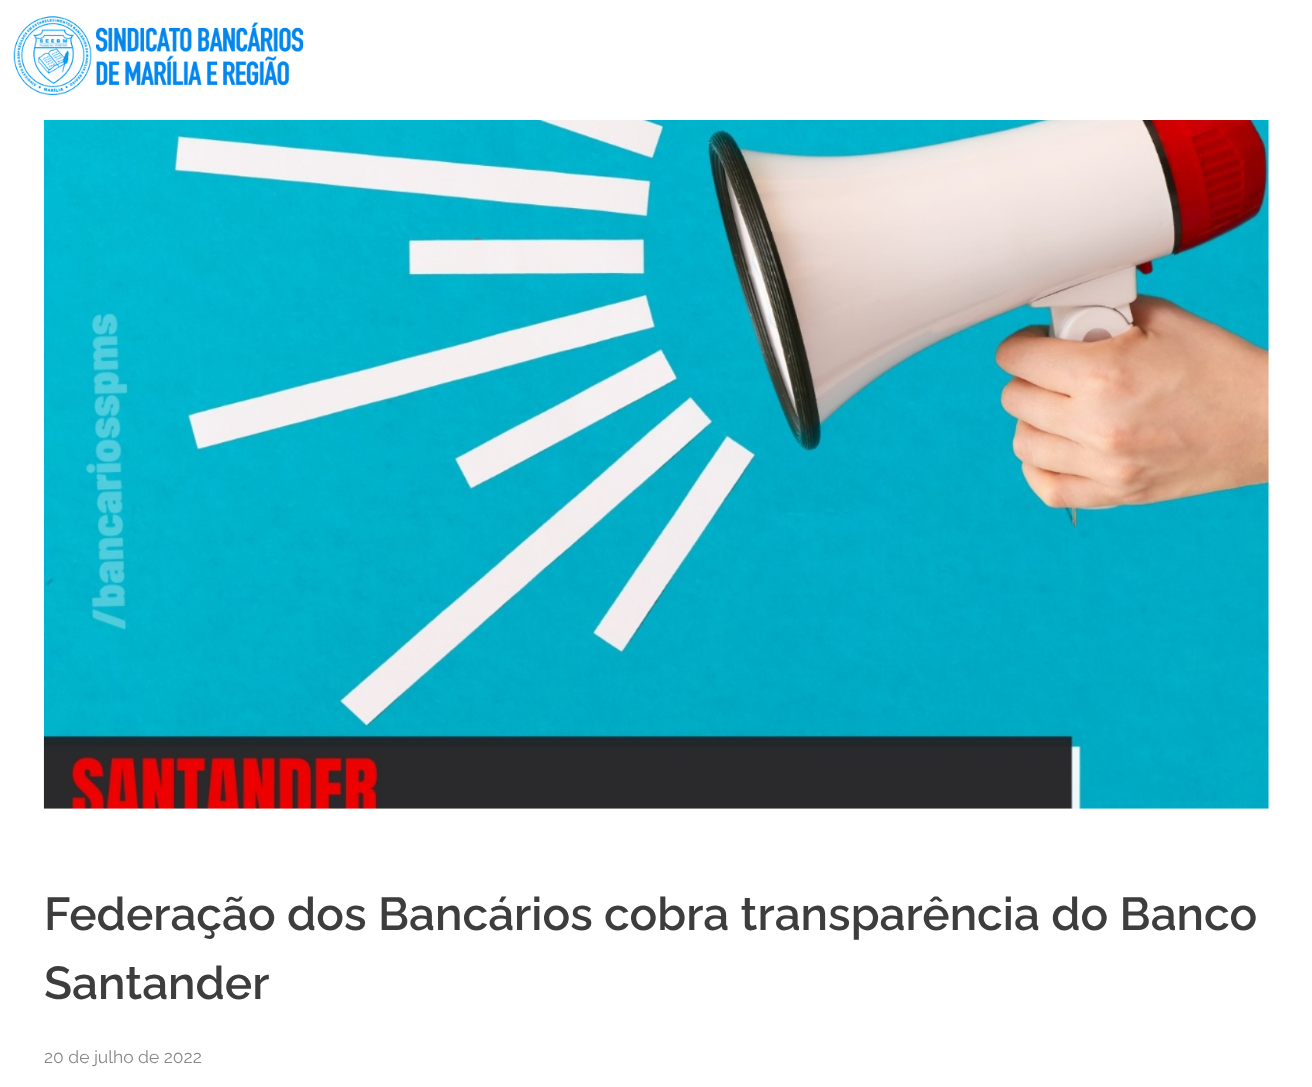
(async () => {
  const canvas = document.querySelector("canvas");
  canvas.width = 1312;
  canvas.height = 1087;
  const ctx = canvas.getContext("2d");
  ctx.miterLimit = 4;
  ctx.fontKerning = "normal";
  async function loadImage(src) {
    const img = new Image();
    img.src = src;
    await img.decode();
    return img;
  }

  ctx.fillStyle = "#ffffff";
  ctx.fillRect(0, 0, 1312, 1087);
  ctx.drawImage(await loadImage("img/1.png"), 13, 16, 291, 79);
  ctx.drawImage(await loadImage("img/2.png"), 43, 120, 1226, 689);
  ctx.font = "600 46px Raleway";
  ctx.fillStyle = "#3d3d3d";
  ctx.fillText("Federação dos Bancários cobra transparência do Banco", 44, 930);
  ctx.fillText("Santander", 44, 999);
  ctx.font = "17.5px Raleway";
  ctx.fillStyle = "#888888";
  ctx.fillText("20 de julho de 2022", 44, 1063);
})();
